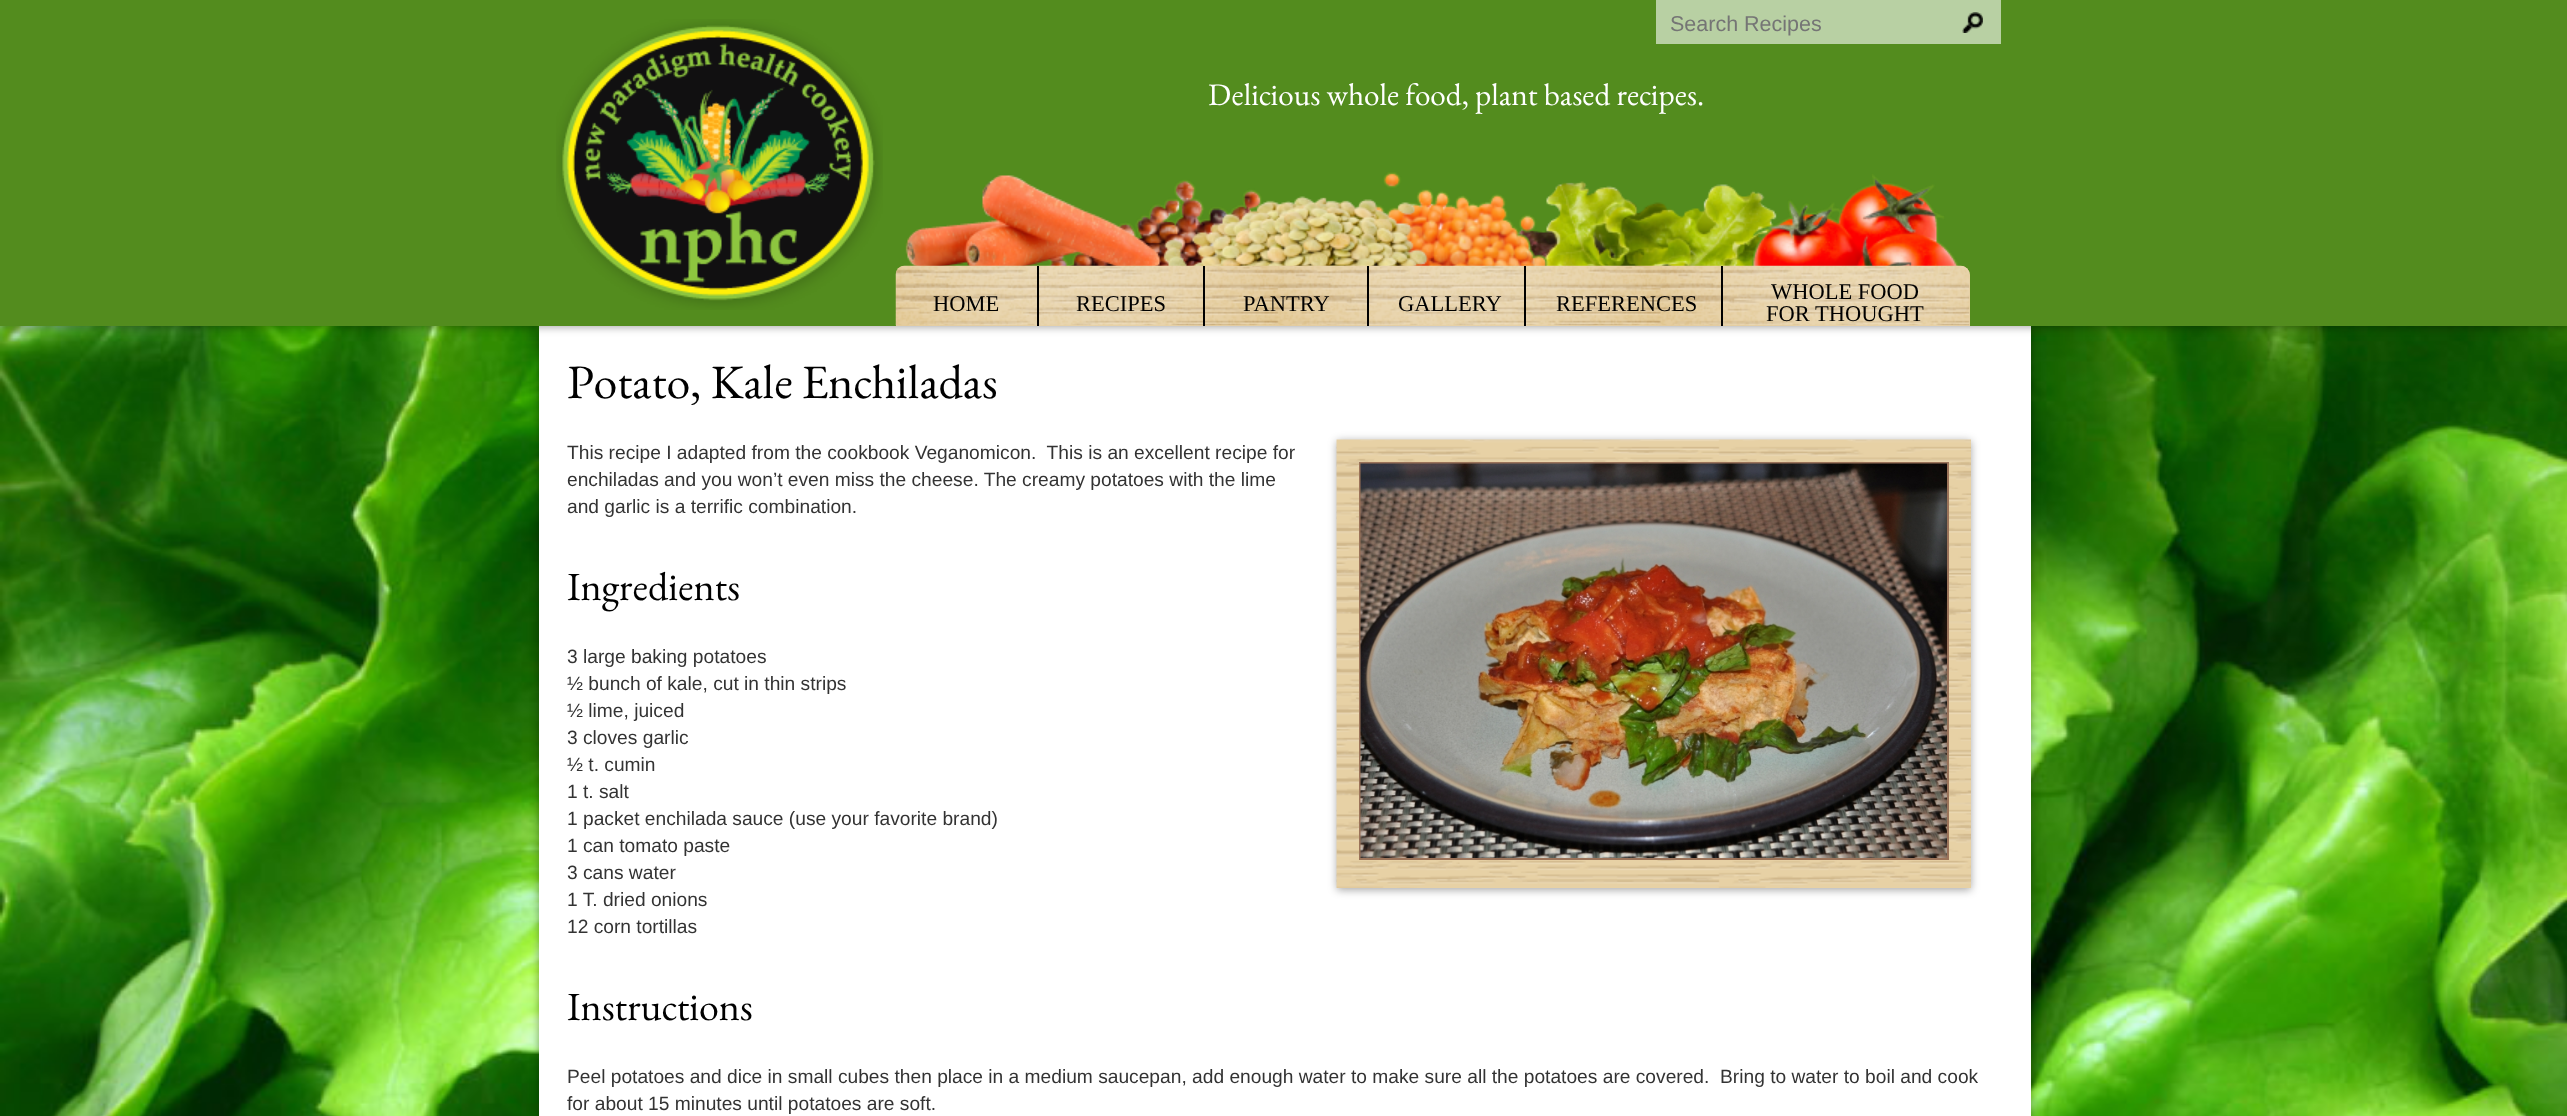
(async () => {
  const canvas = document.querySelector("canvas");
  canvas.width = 2567;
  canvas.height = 1116;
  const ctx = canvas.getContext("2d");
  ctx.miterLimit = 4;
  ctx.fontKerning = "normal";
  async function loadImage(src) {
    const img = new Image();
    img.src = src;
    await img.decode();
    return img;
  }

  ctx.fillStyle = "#ffffff";
  ctx.fillRect(0, 0, 2567, 1116);
  ctx.drawImage(await loadImage("img/7.png"), 0, 326, 2567, 790);
  ctx.fillStyle = "rgba(0, 0, 0, 0.35)";
  ctx.filter = "blur(4.5px)";
  ctx.beginPath();
  ctx.rect(539, 327, 1492, 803);
  ctx.fill();
  ctx.filter = "none";
  ctx.fillStyle = "#ffffff";
  ctx.fillRect(539, 326, 1492, 790);
  ctx.fillStyle = "rgba(0, 0, 0, 0.35)";
  ctx.filter = "blur(4.5px)";
  ctx.beginPath();
  ctx.rect(0, 2, 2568, 325);
  ctx.fill();
  ctx.filter = "none";
  ctx.fillStyle = "#538c1e";
  ctx.fillRect(0, 0, 2567, 326);
  ctx.drawImage(await loadImage("img/1.png"), 556, 19, 327, 291);
  ctx.drawImage(await loadImage("img/2.png"), 905, 172, 1055, 94);
  ctx.fillStyle = "#b8d0a3";
  ctx.fillRect(1656, 0, 345, 44);
  ctx.drawImage(await loadImage("img/3.png"), 1962, 12, 21, 21);
  ctx.fillStyle = "#e7d1a5";
  ctx.beginPath();
  ctx.roundRect(896, 266, 1074, 60, [9, 9, 0, 0]);
  ctx.fill();
  ctx.drawImage(await loadImage("img/4.png"), 895, 265, 1075, 61);
  for (const [x, y, w, h, color] of [
    [1037, 266, 2, 60, "#000000"],
    [1203, 266, 2, 60, "#000000"],
    [1367, 266, 2, 60, "#000000"],
    [1524, 266, 2, 60, "#000000"],
    [1721, 266, 2, 60, "#000000"],
  ]) {
    ctx.fillStyle = color;
    ctx.fillRect(x, y, w, h);
  }
  ctx.fillStyle = "rgba(0, 0, 0, 0.35)";
  ctx.filter = "blur(4.5px)";
  ctx.beginPath();
  ctx.rect(1337, 441, 634, 449);
  ctx.fill();
  ctx.filter = "none";
  ctx.drawImage(await loadImage("img/5.png"), 1336, 439, 635, 449);
  ctx.strokeStyle = "#9b7359";
  ctx.lineWidth = 2;
  ctx.strokeRect(1360, 463, 588, 396);
  ctx.drawImage(await loadImage("img/6.png"), 1360, 463, 587, 395);
  ctx.font = "21.5px Liberation Sans";
  ctx.fillStyle = "#757575";
  ctx.fillText("Search Recipes", 1670, 31);
  ctx.font = "31.25px EB Garamond";
  ctx.fillStyle = "#ffffff";
  ctx.fillText("Delicious whole food, plant based recipes.", 1208, 105);
  ctx.font = "22.5px Liberation Serif";
  ctx.fillStyle = "#000000";
  for (const [text, x, y] of [
    ["HOME", 933, 311],
    ["RECIPES", 1076, 311],
    ["PANTRY", 1243, 311],
    ["GALLERY", 1398, 311],
    ["REFERENCES", 1556, 311],
    ["WHOLE FOOD", 1771, 299],
    ["FOR THOUGHT", 1766, 321],
  ]) {
    ctx.fillText(text, x, y);
  }
  ctx.font = "48px EB Garamond";
  ctx.fillText("Potato, Kale Enchiladas", 567, 398);
  ctx.font = "19.2px Liberation Sans";
  ctx.fillStyle = "#333333";
  for (const [text, x, y] of [
    ["This recipe I adapted from the cookbook Veganomicon.  This is an excellent recipe for", 567, 459],
    ["enchiladas and you won’t even miss the cheese. The creamy potatoes with the lime", 567, 486],
    ["and garlic is a terrific combination.", 567, 513],
  ]) {
    ctx.fillText(text, x, y);
  }
  ctx.font = "40px EB Garamond";
  ctx.fillStyle = "#000000";
  ctx.fillText("Ingredients", 567, 600);
  ctx.font = "19.2px Liberation Sans";
  ctx.fillStyle = "#333333";
  for (const [text, x, y] of [
    ["3 large baking potatoes", 567, 663],
    ["½ bunch of kale, cut in thin strips", 567, 690],
    ["½ lime, juiced", 567, 717],
    ["3 cloves garlic", 567, 744],
    ["½ t. cumin", 567, 771],
    ["1 t. salt", 567, 798],
    ["1 packet enchilada sauce (use your favorite brand)", 567, 825],
    ["1 can tomato paste", 567, 852],
    ["3 cans water", 567, 879],
    ["1 T. dried onions", 567, 906],
    ["12 corn tortillas", 567, 933],
  ]) {
    ctx.fillText(text, x, y);
  }
  ctx.font = "40px EB Garamond";
  ctx.fillStyle = "#000000";
  ctx.fillText("Instructions", 567, 1020);
  ctx.font = "19.2px Liberation Sans";
  ctx.fillStyle = "#333333";
  ctx.fillText("Peel potatoes and dice in small cubes then place in a medium saucepan, add enough water to make sure all the potatoes are covered.  Bring to water to boil and cook", 567, 1083);
  ctx.fillText("for about 15 minutes until potatoes are soft.", 567, 1110);
})();
